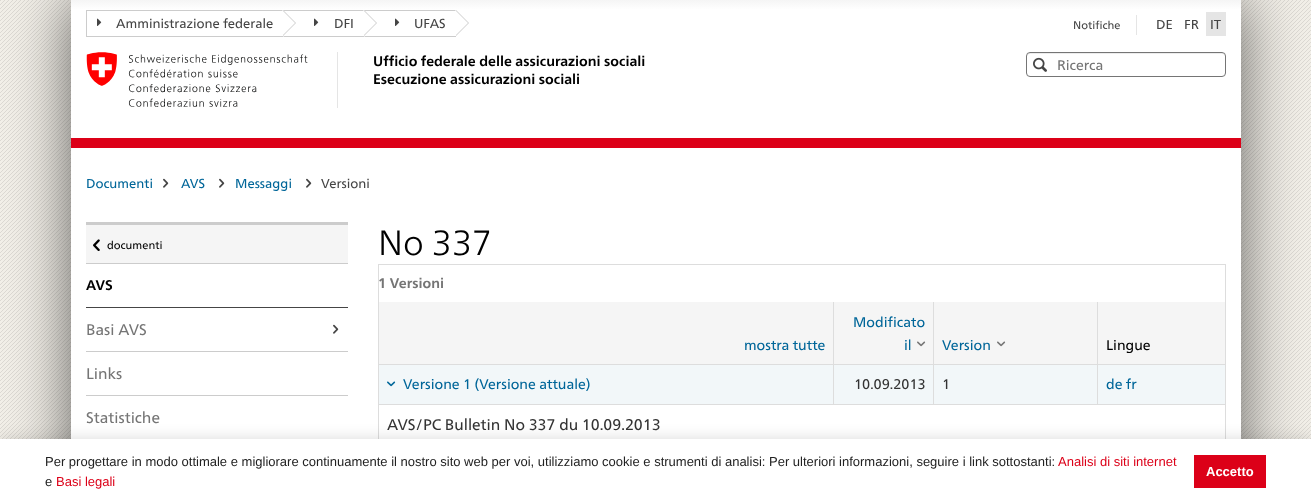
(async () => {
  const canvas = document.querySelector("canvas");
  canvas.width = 1311;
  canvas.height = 504;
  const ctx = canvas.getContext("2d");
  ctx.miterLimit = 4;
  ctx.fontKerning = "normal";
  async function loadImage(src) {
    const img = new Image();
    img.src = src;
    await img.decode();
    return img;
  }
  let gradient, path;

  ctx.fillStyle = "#ffffff";
  ctx.fillRect(0, 0, 1311, 504);
  ctx.drawImage(await loadImage("img/1.png"), 0, 0, 1311, 439);
  ctx.fillStyle = "rgba(0, 0, 0, 0.6)";
  ctx.filter = "blur(30px)";
  ctx.beginPath();
  ctx.rect(71, 0, 1170, 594);
  ctx.fill();
  ctx.filter = "none";
  ctx.fillStyle = "#ffffff";
  ctx.fillRect(71, 148, 1170, 291);
  gradient = ctx.createLinearGradient(656, 0, 656, 138);
  gradient.addColorStop(0, "#f5f5f5");
  gradient.addColorStop(0.07, "#ffffff");
  gradient.addColorStop(1, "#ffffff");
  ctx.fillStyle = gradient;
  ctx.fillRect(71, 0, 1170, 138);
  for (const [x, y, w, h, color] of [
    [86, 10, 197, 1, "#cccccc"],
    [86, 36, 197, 1, "#cccccc"],
    [86, 10, 1, 27, "#cccccc"],
  ]) {
    ctx.fillStyle = color;
    ctx.fillRect(x, y, w, h);
  }
  path = new Path2D("M283 36V10L296 23Z");
  ctx.fill(path);
  ctx.fillStyle = "#ffffff";
  path = new Path2D("M282 36V10L295 23Z");
  ctx.fill(path);
  ctx.drawImage(await loadImage("img/2.png"), 97, 18, 5, 8);
  ctx.fillStyle = "#cccccc";
  path = new Path2D("M283 10H364V11H284Z");
  ctx.fill(path);
  path = new Path2D("M364 37H283L284 36H364Z");
  ctx.fill(path);
  path = new Path2D("M364 36V10L377 23Z");
  ctx.fill(path);
  ctx.fillStyle = "#ffffff";
  path = new Path2D("M363 36V10L376 23Z");
  ctx.fill(path);
  ctx.drawImage(await loadImage("img/2.png"), 314, 18, 5, 8);
  ctx.fillStyle = "#cccccc";
  path = new Path2D("M364 10H456V11H365Z");
  ctx.fill(path);
  path = new Path2D("M456 37H364L365 36H456Z");
  ctx.fill(path);
  path = new Path2D("M456 36V10L469 23Z");
  ctx.fill(path);
  ctx.fillStyle = "#ffffff";
  path = new Path2D("M455 36V10L468 23Z");
  ctx.fill(path);
  ctx.drawImage(await loadImage("img/2.png"), 395, 18, 5, 8);
  for (const [x, y, w, h, color] of [
    [1136, 15, 1, 20, "#e5e5e5"],
    [1206, 12, 20, 24, "#e5e5e5"],
    [337, 52, 1, 56, "#e5e5e5"],
  ]) {
    ctx.fillStyle = color;
    ctx.fillRect(x, y, w, h);
  }
  ctx.drawImage(await loadImage("img/3.png"), 86, 52, 222, 55);
  ctx.fillStyle = "#ececec";
  path = new Path2D("M1030 54H1222C1224 54 1225 55 1225 57C1225 55 1224 53 1222 53H1030C1028 53 1027 55 1027 57C1027 55 1028 54 1030 54Z");
  ctx.fill(path);
  ctx.beginPath();
  ctx.roundRect(1026.5, 52.5, 199, 24, 3.5);
  ctx.strokeStyle = "#757575";
  ctx.stroke();
  ctx.drawImage(await loadImage("img/4.png"), 1033, 57, 14, 15);
  ctx.fillStyle = "#dc0018";
  ctx.fillRect(71, 138, 1170, 10);
  ctx.drawImage(await loadImage("img/5.png"), 163, 178, 6, 10);
  ctx.drawImage(await loadImage("img/5.png"), 219, 178, 6, 10);
  ctx.drawImage(await loadImage("img/5.png"), 306, 178, 6, 10);
  for (const [x, y, w, h, color] of [
    [86, 225, 262, 38, "#f5f5f5"],
    [86, 222, 262, 3, "#cccccc"],
    [86, 263, 262, 1, "#cccccc"],
  ]) {
    ctx.fillStyle = color;
    ctx.fillRect(x, y, w, h);
  }
  ctx.drawImage(await loadImage("img/6.png"), 93, 239, 7, 12);
  ctx.fillStyle = "#454545";
  ctx.fillRect(86, 307, 262, 1);
  ctx.fillStyle = "#cccccc";
  ctx.fillRect(86, 351, 262, 1);
  ctx.drawImage(await loadImage("img/5.png"), 333, 324, 6, 10);
  for (const [x, y, w, h, color] of [
    [86, 395, 262, 1, "#cccccc"],
    [378, 264, 848, 1, "#dddddd"],
    [1225, 264, 1, 175, "#dddddd"],
    [378, 264, 1, 175, "#dddddd"],
    [379, 302, 454, 62, "#f5f5f5"],
    [834, 302, 99, 62, "#f5f5f5"],
    [1097, 364, 129, 1, "#dddddd"],
    [378, 404, 848, 1, "#dddddd"],
    [1097, 364, 1, 41, "#dddddd"],
    [933, 364, 165, 1, "#dddddd"],
    [933, 364, 1, 41, "#dddddd"],
    [833, 364, 101, 1, "#dddddd"],
    [833, 364, 1, 41, "#dddddd"],
    [378, 364, 456, 1, "#dddddd"],
    [833, 302, 1, 63, "#dddddd"],
  ]) {
    ctx.fillStyle = color;
    ctx.fillRect(x, y, w, h);
  }
  ctx.drawImage(await loadImage("img/7.png"), 917, 341, 9, 6);
  ctx.fillStyle = "#f5f5f5";
  ctx.fillRect(934, 302, 163, 62);
  ctx.fillStyle = "#dddddd";
  ctx.fillRect(933, 302, 1, 63);
  ctx.drawImage(await loadImage("img/7.png"), 997, 341, 9, 6);
  for (const [x, y, w, h, color] of [
    [1098, 302, 127, 62, "#f5f5f5"],
    [1097, 302, 1, 63, "#dddddd"],
    [379, 365, 454, 39, "#f2f7f9"],
  ]) {
    ctx.fillStyle = color;
    ctx.fillRect(x, y, w, h);
  }
  ctx.drawImage(await loadImage("img/8.png"), 387, 381, 9, 6);
  for (const [x, y, w, h, color] of [
    [834, 365, 99, 39, "#f2f7f9"],
    [934, 365, 163, 39, "#f2f7f9"],
    [1098, 365, 127, 39, "#f2f7f9"],
  ]) {
    ctx.fillStyle = color;
    ctx.fillRect(x, y, w, h);
  }
  ctx.fillStyle = "rgba(0, 0, 0, 0.15)";
  ctx.filter = "blur(7.5px)";
  ctx.beginPath();
  ctx.rect(0, 439, 1311, 65);
  ctx.fill();
  ctx.filter = "none";
  ctx.fillStyle = "#ffffff";
  ctx.fillRect(0, 439, 1311, 65);
  ctx.fillStyle = "#dc0018";
  ctx.fillRect(1194, 455, 72, 33);
  ctx.font = "13px 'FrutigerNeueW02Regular'";
  ctx.fillStyle = "#454545";
  for (const [text, x, y] of [
    ["Amministrazione federale", 116, 28],
    ["DFI", 334, 28],
    ["UFAS", 414, 28],
  ]) {
    ctx.fillText(text, x, y);
  }
  ctx.font = "11px 'FrutigerNeueW02Regular'";
  ctx.fillText("Notifiche", 1073, 29);
  ctx.font = "13px 'FrutigerNeueW02Regular'";
  for (const [text, x, y] of [
    ["DE", 1156, 29],
    ["FR", 1184, 29],
    ["IT", 1210, 29],
  ]) {
    ctx.fillText(text, x, y);
  }
  ctx.font = "bold 14px 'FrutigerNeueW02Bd'";
  ctx.fillStyle = "#000000";
  ctx.fillText("Ufficio federale delle assicurazioni sociali", 373, 66);
  ctx.fillText("Esecuzione assicurazioni sociali", 373, 84);
  ctx.font = "14px 'FrutigerNeueW02Regular'";
  ctx.fillStyle = "#757575";
  ctx.fillText("Ricerca", 1057, 70);
  ctx.font = "13px 'FrutigerNeueW02Regular'";
  ctx.fillStyle = "#006699";
  for (const [text, x, y] of [
    ["Documenti", 86, 188],
    ["AVS", 181, 188],
    ["Messaggi", 235, 188],
  ]) {
    ctx.fillText(text, x, y);
  }
  ctx.fillStyle = "#454545";
  ctx.fillText("Versioni", 321, 188);
  ctx.font = "11px 'FrutigerNeueW02Regular'";
  ctx.fillStyle = "#000000";
  ctx.fillText("documenti", 107, 249);
  ctx.font = "bold 14px 'FrutigerNeueW02Bd'";
  ctx.fillText("AVS", 86, 290);
  ctx.font = "15.4px 'FrutigerNeueW02Regular'";
  ctx.fillStyle = "#757575";
  for (const [text, x, y] of [
    ["Basi AVS", 86, 335],
    ["Links", 86, 379],
    ["Statistiche", 86, 423],
  ]) {
    ctx.fillText(text, x, y);
  }
  ctx.font = "300 35px 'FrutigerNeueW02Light'";
  ctx.fillStyle = "#000000";
  ctx.fillText("No 337", 378, 255);
  ctx.font = "bold 14px 'FrutigerNeueW02Bd'";
  ctx.fillStyle = "#757575";
  ctx.fillText("1 Versioni", 378, 288);
  ctx.font = "14px 'FrutigerNeueW02Regular'";
  ctx.fillStyle = "#006699";
  for (const [text, x, y] of [
    ["mostra tutte", 744, 350],
    ["Modificato", 853, 327],
    ["il", 904, 350],
    ["Version", 942, 350],
  ]) {
    ctx.fillText(text, x, y);
  }
  ctx.fillStyle = "#000000";
  ctx.fillText("Lingue", 1106, 350);
  ctx.fillStyle = "#006699";
  ctx.fillText("Versione 1 (Versione attuale)", 403, 389);
  ctx.fillStyle = "#333333";
  ctx.fillText("10.09.2013", 854, 389);
  ctx.fillText("1", 942, 389);
  ctx.fillStyle = "#006699";
  ctx.fillText("de fr", 1106, 389);
  ctx.font = "15.4px 'FrutigerNeueW02Regular'";
  ctx.fillStyle = "#333333";
  ctx.fillText("AVS/PC Bulletin No 337 du 10.09.2013", 387, 430);
  ctx.font = "13px Liberation Sans";
  ctx.fillStyle = "#222222";
  ctx.fillText("Per progettare in modo ottimale e migliorare continuamente il nostro sito web per voi, utilizziamo cookie e strumenti di analisi: Per ulteriori informazioni, seguire i link sottostanti:", 45, 466);
  ctx.fillStyle = "#dc0018";
  ctx.fillText("Analisi di siti internet", 1058, 466);
  ctx.fillStyle = "#222222";
  ctx.fillText("e", 45, 486);
  ctx.fillStyle = "#dc0018";
  ctx.fillText("Basi legali", 56, 486);
  ctx.font = "bold 13px Liberation Sans";
  ctx.fillStyle = "#ffffff";
  ctx.fillText("Accetto", 1206, 476);
})();
